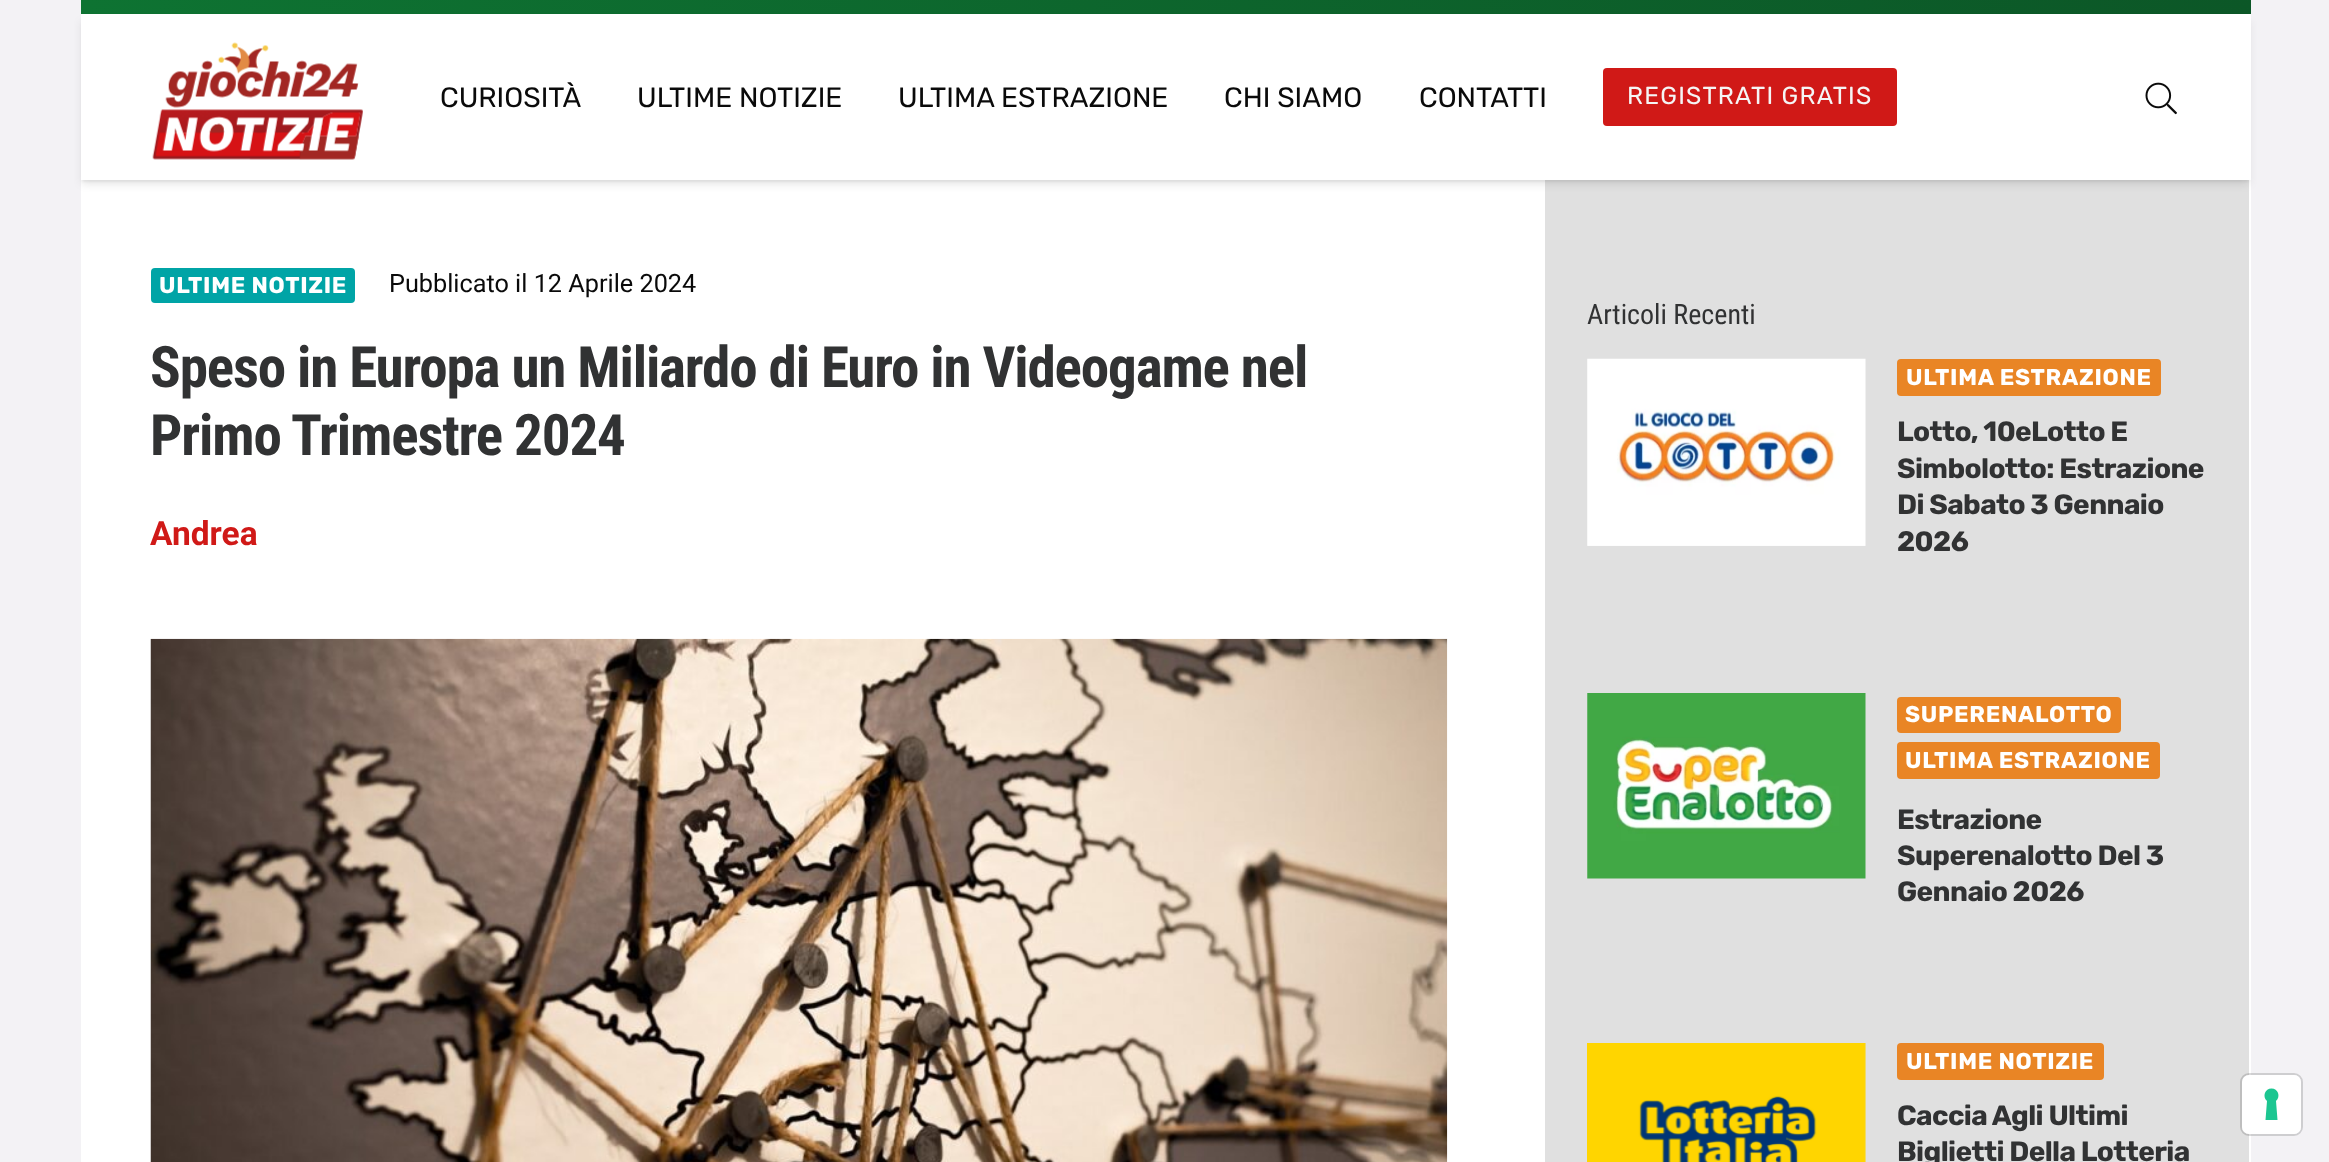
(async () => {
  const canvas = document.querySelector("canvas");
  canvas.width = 2329;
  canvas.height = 1162;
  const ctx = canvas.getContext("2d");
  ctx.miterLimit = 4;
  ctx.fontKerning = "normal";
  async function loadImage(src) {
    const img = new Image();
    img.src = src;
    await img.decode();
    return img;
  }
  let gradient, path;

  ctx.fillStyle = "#f3f2f5";
  ctx.fillRect(0, 0, 2329, 1162);
  ctx.fillStyle = "#ffffff";
  ctx.fillRect(81, 180, 2170, 982);
  gradient = ctx.createLinearGradient(81, 7, 2251, 7);
  gradient.addColorStop(0, "#0e7332");
  gradient.addColorStop(1, "#0c5727");
  ctx.fillStyle = gradient;
  ctx.fillRect(81, 0, 2170, 14);
  ctx.fillStyle = "#e0e0e0";
  ctx.fillRect(1545, 180, 704, 982);
  ctx.fillStyle = "rgba(0, 0, 0, 0.05)";
  ctx.filter = "blur(1px)";
  ctx.beginPath();
  ctx.rect(82, 19, 2167, 163);
  ctx.fill();
  ctx.filter = "none";
  ctx.fillStyle = "rgba(0, 0, 0, 0.1)";
  ctx.filter = "blur(4.5px)";
  ctx.beginPath();
  ctx.rect(82, 21, 2167, 163);
  ctx.fill();
  ctx.filter = "none";
  ctx.fillStyle = "#ffffff";
  ctx.fillRect(81, 14, 2170, 166);
  ctx.drawImage(await loadImage("img/1.png"), 152, 42, 211, 118);
  ctx.fillStyle = "#d01917";
  ctx.beginPath();
  ctx.roundRect(1603, 68, 294, 58, 4);
  ctx.fill();
  ctx.drawImage(await loadImage("img/2.png"), 2145, 82, 32, 33);
  ctx.fillStyle = "#00a4a6";
  ctx.beginPath();
  ctx.roundRect(151, 268, 204, 35, 4);
  ctx.fill();
  ctx.drawImage(await loadImage("img/3.png"), 150, 638, 1298, 524);
  ctx.drawImage(await loadImage("img/4.png"), 1587, 358, 279, 188);
  ctx.fillStyle = "#e98525";
  ctx.beginPath();
  ctx.roundRect(1897, 359, 264, 37, 4);
  ctx.fill();
  ctx.drawImage(await loadImage("img/5.png"), 1587, 693, 279, 186);
  ctx.beginPath();
  ctx.roundRect(1897, 697, 224, 36, 4);
  ctx.fill();
  ctx.beginPath();
  ctx.roundRect(1897, 742, 263, 37, 4);
  ctx.fill();
  ctx.drawImage(await loadImage("img/6.png"), 1587, 1043, 279, 119);
  ctx.beginPath();
  ctx.roundRect(1897, 1043, 207, 37, 4);
  ctx.fill();
  ctx.beginPath();
  ctx.roundRect(2241, 1074, 61, 61, 8);
  ctx.strokeStyle = "rgba(0, 0, 0, 0.15)";
  ctx.lineWidth = 2;
  ctx.stroke();
  ctx.fillStyle = "#ffffff";
  ctx.beginPath();
  ctx.roundRect(2242, 1075, 59, 59, 7);
  ctx.fill();
  ctx.fillStyle = "#1cc691";
  path = new Path2D("M2271.5 1088.5C2278 1088.5 2281 1096.5 2276 1101L2277.5 1120H2265.5L2267 1101C2262 1096.5 2265 1088.5 2271.5 1088.5Z");
  ctx.fill(path, "evenodd");
  ctx.font = "300 28px 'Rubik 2'";
  ctx.fillStyle = "#0a0a0a";
  for (const [text, x, y] of [
    ["CURIOSITÀ", 440, 107],
    ["ULTIME NOTIZIE", 637, 107],
    ["ULTIMA ESTRAZIONE", 898, 107],
    ["CHI SIAMO", 1224, 107],
    ["CONTATTI", 1419, 107],
  ]) {
    ctx.fillText(text, x, y);
  }
  ctx.letterSpacing = "1.25px";
  ctx.font = "300 24.5px 'Rubik 2'";
  ctx.fillStyle = "#f5f5f5";
  ctx.fillText("REGISTRATI GRATIS", 1627, 104);
  ctx.letterSpacing = "0.7px";
  ctx.font = "300 22.75px Rubik";
  ctx.fillStyle = "#ffffff";
  ctx.fillText("ULTIME NOTIZIE", 159, 293);
  ctx.letterSpacing = "0px";
  ctx.font = "25.25px Roboto";
  ctx.fillStyle = "#0a0a0a";
  ctx.fillText("Pubblicato il 12 Aprile 2024", 389, 292);
  ctx.letterSpacing = "-1.15px";
  ctx.font = "bold 57.1px Roboto Condensed";
  ctx.fillStyle = "#313233";
  ctx.fillText("Speso in Europa un Miliardo di Euro in Videogame nel", 150, 387);
  ctx.fillText("Primo Trimestre 2024", 150, 455);
  ctx.letterSpacing = "0px";
  ctx.font = "bold 33.5px Roboto";
  ctx.fillStyle = "#d01917";
  ctx.fillText("Andrea", 150, 545);
  ctx.font = "28px Roboto Condensed";
  ctx.fillStyle = "#313233";
  ctx.fillText("Articoli Recenti", 1587, 324);
  ctx.letterSpacing = "0.7px";
  ctx.font = "300 22.75px Rubik";
  ctx.fillStyle = "#ffffff";
  ctx.fillText("ULTIMA ESTRAZIONE", 1906, 385);
  ctx.letterSpacing = "-0.6px";
  ctx.font = "300 28px Rubik";
  ctx.fillStyle = "#313233";
  for (const [text, x, y] of [
    ["Lotto, 10eLotto E", 1897, 441],
    ["Simbolotto: Estrazione", 1897, 478],
    ["Di Sabato 3 Gennaio", 1897, 514],
    ["2026", 1897, 551],
  ]) {
    ctx.fillText(text, x, y);
  }
  ctx.letterSpacing = "0.7px";
  ctx.font = "300 22.75px Rubik";
  ctx.fillStyle = "#ffffff";
  ctx.fillText("SUPERENALOTTO", 1905, 722);
  ctx.fillText("ULTIMA ESTRAZIONE", 1905, 768);
  ctx.letterSpacing = "-0.6px";
  ctx.font = "300 28px Rubik";
  ctx.fillStyle = "#313233";
  for (const [text, x, y] of [
    ["Estrazione", 1897, 829],
    ["Superenalotto Del 3", 1897, 865],
    ["Gennaio 2026", 1897, 901],
  ]) {
    ctx.fillText(text, x, y);
  }
  ctx.letterSpacing = "0.7px";
  ctx.font = "300 22.75px Rubik";
  ctx.fillStyle = "#ffffff";
  ctx.fillText("ULTIME NOTIZIE", 1906, 1069);
  ctx.letterSpacing = "-0.6px";
  ctx.font = "300 28px Rubik";
  ctx.fillStyle = "#313233";
  ctx.fillText("Caccia Agli Ultimi", 1897, 1125);
  ctx.fillText("Biglietti Della Lotteria", 1897, 1161);
})();
